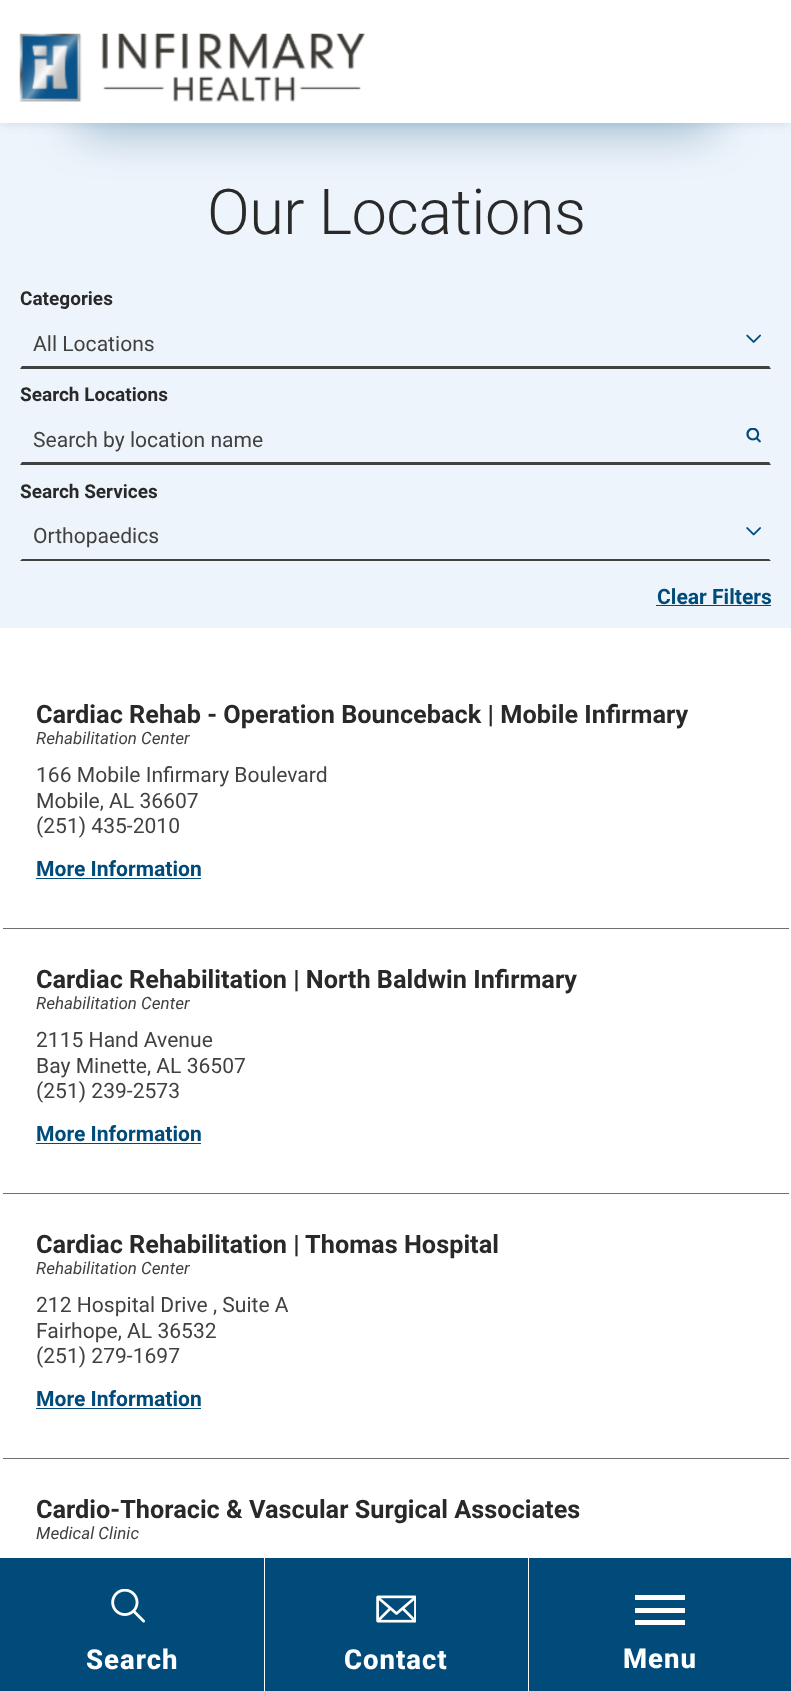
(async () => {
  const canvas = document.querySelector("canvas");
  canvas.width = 791;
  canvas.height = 1691;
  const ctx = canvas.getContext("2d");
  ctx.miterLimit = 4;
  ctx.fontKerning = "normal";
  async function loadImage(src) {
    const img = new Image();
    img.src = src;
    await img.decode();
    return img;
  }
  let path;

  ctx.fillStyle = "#ffffff";
  ctx.fillRect(0, 0, 791, 1691);
  ctx.fillStyle = "#eef4fb";
  ctx.fillRect(0, 123, 791, 505);
  ctx.fillStyle = "#414141";
  path = new Path2D("M771 369H20L22 366H769Z");
  ctx.fill(path);
  ctx.drawImage(await loadImage("img/1.png"), 746, 334, 15, 9);
  path = new Path2D("M771 465H20L22 462H769Z");
  ctx.fill(path);
  ctx.drawImage(await loadImage("img/2.png"), 746, 428, 15, 15);
  path = new Path2D("M771 561H20L22 559H769Z");
  ctx.fill(path);
  ctx.drawImage(await loadImage("img/3.png"), 746, 527, 15, 9);
  for (const [x, y, w, h, color] of [
    [656, 605, 115, 1, "#004b7a"],
    [36, 878, 165, 1, "#004b7a"],
    [3, 928, 786, 1, "#707070"],
    [36, 1143, 165, 1, "#004b7a"],
    [3, 1193, 786, 1, "#707070"],
    [36, 1408, 165, 1, "#004b7a"],
    [3, 1458, 786, 1, "#707070"],
  ]) {
    ctx.fillStyle = color;
    ctx.fillRect(x, y, w, h);
  }
  ctx.fillStyle = "rgba(0, 75, 122, 0.6)";
  ctx.filter = "blur(25px)";
  ctx.beginPath();
  ctx.rect(79, 98, 634, 25);
  ctx.fill();
  ctx.filter = "none";
  ctx.fillStyle = "rgba(0, 70, 127, 0.15)";
  ctx.filter = "blur(6px)";
  ctx.beginPath();
  ctx.rect(0, 0, 791, 123);
  ctx.fill();
  ctx.filter = "none";
  ctx.fillStyle = "#ffffff";
  ctx.fillRect(0, 0, 791, 123);
  ctx.drawImage(await loadImage("img/4.png"), 19, 33, 347, 69);
  ctx.fillStyle = "#004b7a";
  ctx.fillRect(0, 1558, 791, 133);
  ctx.drawImage(await loadImage("img/5.png"), 111, 1589, 34, 34);
  ctx.fillStyle = "#ffffff";
  ctx.fillRect(264, 1558, 1, 133);
  ctx.drawImage(await loadImage("img/6.png"), 376, 1595, 40, 28);
  for (const [x, y, w, h, color] of [
    [528, 1558, 1, 133, "#ffffff"],
    [635, 1595, 50, 5, "#ffffff"],
    [635, 1608, 50, 5, "#ffffff"],
    [635, 1620, 50, 5, "#ffffff"],
  ]) {
    ctx.fillStyle = color;
    ctx.fillRect(x, y, w, h);
  }
  ctx.letterSpacing = "-0.6px";
  ctx.font = "300 63.25px Roboto";
  ctx.fillStyle = "#292929";
  ctx.fillText("Our Locations", 207, 234);
  ctx.letterSpacing = "0px";
  ctx.font = "bold 19px Roboto";
  ctx.fillText("Categories", 20, 305);
  ctx.font = "21.1px Roboto";
  ctx.fillStyle = "#414141";
  ctx.fillText("All Locations", 33, 351);
  ctx.font = "bold 19px Roboto";
  ctx.fillStyle = "#292929";
  ctx.fillText("Search Locations", 20, 401);
  ctx.font = "21.1px Roboto";
  ctx.fillStyle = "#414141";
  ctx.fillText("Search by location name", 33, 447);
  ctx.font = "bold 19px Roboto";
  ctx.fillStyle = "#292929";
  ctx.fillText("Search Services", 20, 498);
  ctx.font = "21.1px Roboto";
  ctx.fillStyle = "#414141";
  ctx.fillText("Orthopaedics", 33, 543);
  ctx.font = "bold 21.1px Roboto";
  ctx.fillStyle = "#004b7a";
  ctx.fillText("Clear Filters", 657, 604);
  ctx.font = "bold 25.3px Roboto";
  ctx.fillStyle = "#292929";
  ctx.fillText("Cardiac Rehab - Operation Bounceback | Mobile Infirmary", 36, 723);
  ctx.font = "italic 16.9px Roboto";
  ctx.fillStyle = "#414141";
  ctx.fillText("Rehabilitation Center", 36, 744);
  ctx.font = "21.1px Roboto";
  for (const [text, x, y] of [
    ["166 Mobile Infirmary Boulevard", 36, 782],
    ["Mobile, AL 36607", 36, 808],
    ["(251) 435-2010", 36, 833],
  ]) {
    ctx.fillText(text, x, y);
  }
  ctx.font = "bold 21.1px Roboto";
  ctx.fillStyle = "#004b7a";
  ctx.fillText("More Information", 36, 876);
  ctx.font = "bold 25.3px Roboto";
  ctx.fillStyle = "#292929";
  ctx.fillText("Cardiac Rehabilitation | North Baldwin Infirmary", 36, 988);
  ctx.font = "italic 16.9px Roboto";
  ctx.fillStyle = "#414141";
  ctx.fillText("Rehabilitation Center", 36, 1009);
  ctx.font = "21.1px Roboto";
  for (const [text, x, y] of [
    ["2115 Hand Avenue", 36, 1047],
    ["Bay Minette, AL 36507", 36, 1073],
    ["(251) 239-2573", 36, 1098],
  ]) {
    ctx.fillText(text, x, y);
  }
  ctx.font = "bold 21.1px Roboto";
  ctx.fillStyle = "#004b7a";
  ctx.fillText("More Information", 36, 1141);
  ctx.font = "bold 25.3px Roboto";
  ctx.fillStyle = "#292929";
  ctx.fillText("Cardiac Rehabilitation | Thomas Hospital", 36, 1253);
  ctx.font = "italic 16.9px Roboto";
  ctx.fillStyle = "#414141";
  ctx.fillText("Rehabilitation Center", 36, 1274);
  ctx.font = "21.1px Roboto";
  for (const [text, x, y] of [
    ["212 Hospital Drive , Suite A", 36, 1312],
    ["Fairhope, AL 36532", 36, 1338],
    ["(251) 279-1697", 36, 1363],
  ]) {
    ctx.fillText(text, x, y);
  }
  ctx.font = "bold 21.1px Roboto";
  ctx.fillStyle = "#004b7a";
  ctx.fillText("More Information", 36, 1406);
  ctx.font = "bold 25.3px Roboto";
  ctx.fillStyle = "#292929";
  ctx.fillText("Cardio-Thoracic & Vascular Surgical Associates", 36, 1518);
  ctx.font = "italic 16.9px Roboto";
  ctx.fillStyle = "#414141";
  ctx.fillText("Medical Clinic", 36, 1539);
  ctx.letterSpacing = "1px";
  ctx.font = "800 27.5px Roboto";
  ctx.fillStyle = "#ffffff";
  for (const [text, x, y] of [
    ["Search", 86, 1669],
    ["Contact", 344, 1669],
    ["Menu", 623, 1668],
  ]) {
    ctx.fillText(text, x, y);
  }
})();
